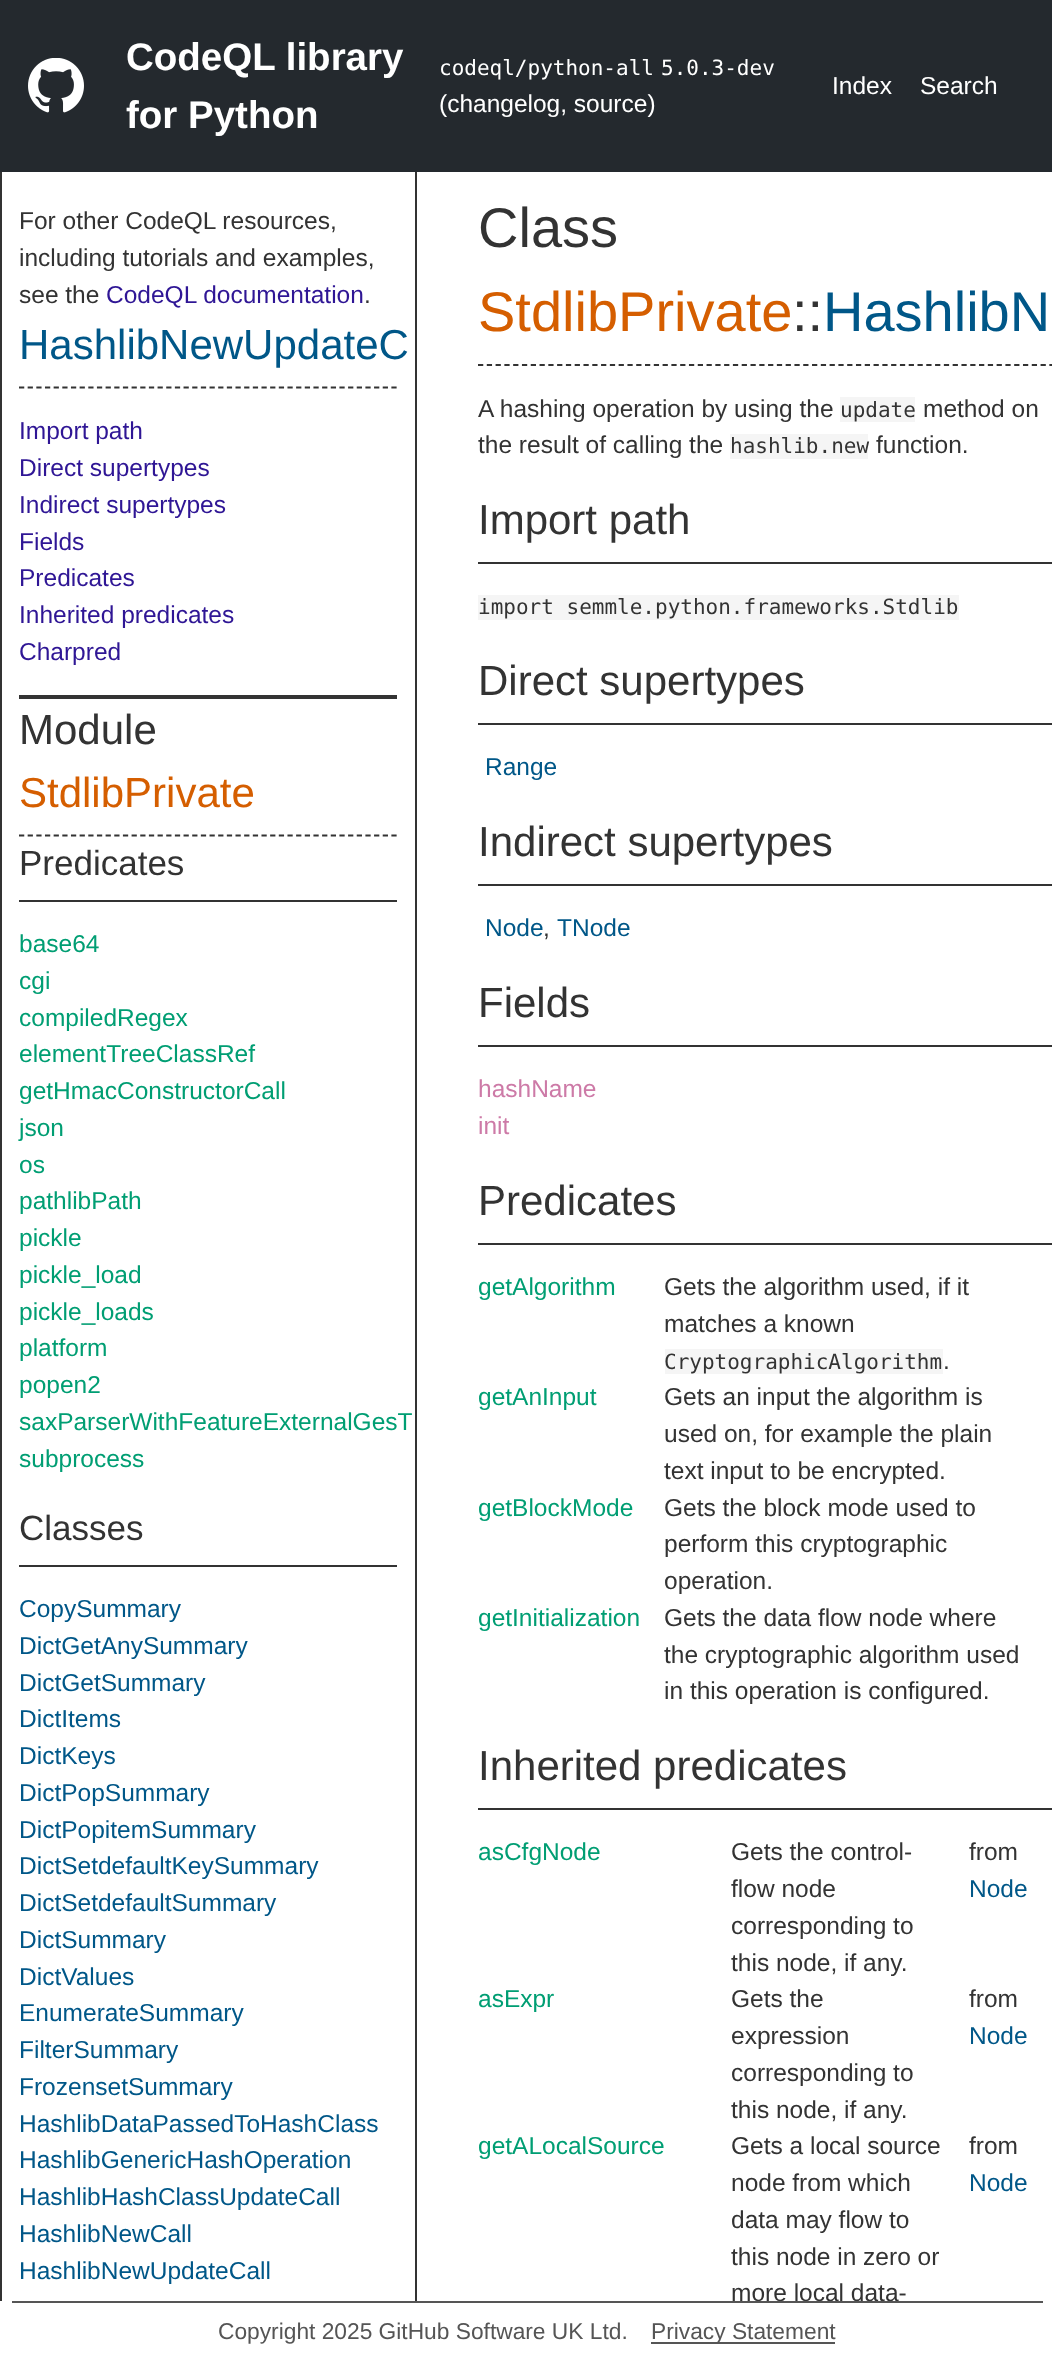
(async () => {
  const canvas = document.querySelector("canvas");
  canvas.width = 1052;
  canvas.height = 2371;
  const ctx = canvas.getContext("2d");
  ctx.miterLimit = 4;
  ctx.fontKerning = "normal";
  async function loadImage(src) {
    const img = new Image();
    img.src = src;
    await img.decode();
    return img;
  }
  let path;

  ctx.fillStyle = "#ffffff";
  ctx.fillRect(0, 0, 1052, 2371);
  ctx.fillStyle = "#24292e";
  ctx.fillRect(0, 0, 1052, 172);
  ctx.drawImage(await loadImage("img/1.png"), 28, 58, 56, 55);
  for (const [x, y, w, h, color] of [
    [415, 172, 2, 2129, "#333333"],
    [0, 172, 2, 2129, "#333333"],
    [19, 695, 378, 4, "#333333"],
  ]) {
    ctx.fillStyle = color;
    ctx.fillRect(x, y, w, h);
  }
  path = new Path2D("M19 387.5H397");
  ctx.strokeStyle = "#333333";
  ctx.lineWidth = 1.8;
  ctx.setLineDash([5.25, 3.41]);
  ctx.stroke(path);
  path = new Path2D("M19 835.5H397");
  ctx.stroke(path);
  ctx.fillRect(19, 900, 378, 2);
  ctx.fillRect(19, 1565, 378, 2);
  path = new Path2D("M478 365H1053.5");
  ctx.setLineDash([5.25, 3.54]);
  ctx.stroke(path);
  for (const [x, y, w, h, color] of [
    [840, 397, 75, 25, "#f5f5f5"],
    [730, 434, 138, 25, "#f5f5f5"],
    [478, 562, 574, 2, "#333333"],
    [478, 595, 481, 25, "#f5f5f5"],
    [478, 723, 574, 2, "#333333"],
    [478, 884, 574, 2, "#333333"],
    [478, 1045, 574, 2, "#333333"],
    [478, 1243, 574, 2, "#333333"],
    [665, 1349, 278, 25, "#f5f5f5"],
    [478, 1808, 574, 2, "#333333"],
    [12, 2301, 1031, 2, "#555555"],
    [651, 2342, 184, 2, "#555555"],
  ]) {
    ctx.fillStyle = color;
    ctx.fillRect(x, y, w, h);
  }
  ctx.font = "bold 38.5px Liberation Sans";
  ctx.fillStyle = "#ffffff";
  ctx.fillText("CodeQL library", 126, 70);
  ctx.fillText("for Python", 126, 128);
  ctx.font = "21px DejaVu Sans Mono";
  ctx.fillText("codeql/python-all", 439, 75);
  ctx.fillText("5.0.3-dev", 661, 75);
  ctx.font = "24.5px Liberation Sans";
  for (const [text, x, y] of [
    ["(changelog, source)", 439, 112],
    ["Index", 832, 94],
    ["Search", 920, 94],
  ]) {
    ctx.fillText(text, x, y);
  }
  ctx.fillStyle = "#333333";
  for (const [text, x, y] of [
    ["For other CodeQL resources,", 19, 229],
    ["including tutorials and examples,", 19, 266],
    ["see the", 19, 303],
  ]) {
    ctx.fillText(text, x, y);
  }
  ctx.fillStyle = "#2f1695";
  ctx.fillText("CodeQL documentation", 106, 303);
  ctx.fillStyle = "#333333";
  ctx.fillText(".", 364, 303);
  ctx.font = "42px Liberation Sans";
  ctx.fillStyle = "#005788";
  ctx.fillText("HashlibNewUpdateC", 19, 359);
  ctx.font = "24.5px Liberation Sans";
  ctx.fillStyle = "#2f1695";
  for (const [text, x, y] of [
    ["Import path", 19, 439],
    ["Direct supertypes", 19, 476],
    ["Indirect supertypes", 19, 513],
    ["Fields", 19, 550],
    ["Predicates", 19, 586],
    ["Inherited predicates", 19, 623],
    ["Charpred", 19, 660],
  ]) {
    ctx.fillText(text, x, y);
  }
  ctx.font = "42px Liberation Sans";
  ctx.fillStyle = "#333333";
  ctx.fillText("Module", 19, 744);
  ctx.fillStyle = "#d55e00";
  ctx.fillText("StdlibPrivate", 19, 807);
  ctx.font = "35px Liberation Sans";
  ctx.fillStyle = "#333333";
  ctx.fillText("Predicates", 19, 875);
  ctx.font = "24.5px Liberation Sans";
  ctx.fillStyle = "#009e73";
  for (const [text, x, y] of [
    ["base64", 19, 952],
    ["cgi", 19, 989],
    ["compiledRegex", 19, 1026],
    ["elementTreeClassRef", 19, 1062],
    ["getHmacConstructorCall", 19, 1099],
    ["json", 19, 1136],
    ["os", 19, 1173],
    ["pathlibPath", 19, 1209],
    ["pickle", 19, 1246],
    ["pickle_load", 19, 1283],
    ["pickle_loads", 19, 1320],
    ["platform", 19, 1356],
    ["popen2", 19, 1393],
    ["saxParserWithFeatureExternalGesT", 19, 1430],
    ["subprocess", 19, 1467],
  ]) {
    ctx.fillText(text, x, y);
  }
  ctx.font = "35px Liberation Sans";
  ctx.fillStyle = "#333333";
  ctx.fillText("Classes", 19, 1540);
  ctx.font = "24.5px Liberation Sans";
  ctx.fillStyle = "#005788";
  for (const [text, x, y] of [
    ["CopySummary", 19, 1617],
    ["DictGetAnySummary", 19, 1654],
    ["DictGetSummary", 19, 1691],
    ["DictItems", 19, 1727],
    ["DictKeys", 19, 1764],
    ["DictPopSummary", 19, 1801],
    ["DictPopitemSummary", 19, 1838],
    ["DictSetdefaultKeySummary", 19, 1874],
    ["DictSetdefaultSummary", 19, 1911],
    ["DictSummary", 19, 1948],
    ["DictValues", 19, 1985],
    ["EnumerateSummary", 19, 2021],
    ["FilterSummary", 19, 2058],
    ["FrozensetSummary", 19, 2095],
    ["HashlibDataPassedToHashClass", 19, 2132],
    ["HashlibGenericHashOperation", 19, 2168],
    ["HashlibHashClassUpdateCall", 19, 2205],
    ["HashlibNewCall", 19, 2242],
    ["HashlibNewUpdateCall", 19, 2279],
  ]) {
    ctx.fillText(text, x, y);
  }
  ctx.font = "56px Liberation Sans";
  ctx.fillStyle = "#333333";
  ctx.fillText("Class", 478, 247);
  ctx.fillStyle = "#d55e00";
  ctx.fillText("StdlibPrivate", 478, 331);
  ctx.fillStyle = "#333333";
  ctx.fillText("::", 792, 331);
  ctx.fillStyle = "#005788";
  ctx.fillText("HashlibN", 823, 331);
  ctx.font = "24.5px Liberation Sans";
  ctx.fillStyle = "#333333";
  ctx.fillText("A hashing operation by using the", 478, 417);
  ctx.font = "21px DejaVu Sans Mono";
  ctx.fillText("update", 840, 417);
  ctx.font = "24.5px Liberation Sans";
  ctx.fillText("method on", 923, 417);
  ctx.fillText("the result of calling the", 478, 453);
  ctx.font = "21px DejaVu Sans Mono";
  ctx.fillText("hashlib.new", 730, 453);
  ctx.font = "24.5px Liberation Sans";
  ctx.fillText("function.", 876, 453);
  ctx.font = "42px Liberation Sans";
  ctx.fillText("Import path", 478, 534);
  ctx.font = "21px DejaVu Sans Mono";
  ctx.fillText("import semmle.python.frameworks.Stdlib", 478, 614);
  ctx.font = "42px Liberation Sans";
  ctx.fillText("Direct supertypes", 478, 695);
  ctx.font = "24.5px Liberation Sans";
  ctx.fillStyle = "#005788";
  ctx.fillText("Range", 485, 775);
  ctx.font = "42px Liberation Sans";
  ctx.fillStyle = "#333333";
  ctx.fillText("Indirect supertypes", 478, 856);
  ctx.font = "24.5px Liberation Sans";
  ctx.fillStyle = "#005788";
  ctx.fillText("Node", 485, 936);
  ctx.fillStyle = "#333333";
  ctx.fillText(",", 543, 936);
  ctx.fillStyle = "#005788";
  ctx.fillText("TNode", 557, 936);
  ctx.font = "42px Liberation Sans";
  ctx.fillStyle = "#333333";
  ctx.fillText("Fields", 478, 1017);
  ctx.font = "24.5px Liberation Sans";
  ctx.fillStyle = "#cd7aa7";
  ctx.fillText("hashName", 478, 1097);
  ctx.fillText("init", 478, 1134);
  ctx.font = "42px Liberation Sans";
  ctx.fillStyle = "#333333";
  ctx.fillText("Predicates", 478, 1215);
  ctx.font = "24.5px Liberation Sans";
  ctx.fillStyle = "#009e73";
  ctx.fillText("getAlgorithm", 478, 1295);
  ctx.fillStyle = "#333333";
  ctx.fillText("Gets the algorithm used, if it", 664, 1295);
  ctx.fillText("matches a known", 664, 1332);
  ctx.font = "21px DejaVu Sans Mono";
  ctx.fillText("CryptographicAlgorithm", 664, 1369);
  ctx.font = "24.5px Liberation Sans";
  ctx.fillText(".", 943, 1369);
  ctx.fillStyle = "#009e73";
  ctx.fillText("getAnInput", 478, 1405);
  ctx.fillStyle = "#333333";
  for (const [text, x, y] of [
    ["Gets an input the algorithm is", 664, 1405],
    ["used on, for example the plain", 664, 1442],
    ["text input to be encrypted.", 664, 1479],
  ]) {
    ctx.fillText(text, x, y);
  }
  ctx.fillStyle = "#009e73";
  ctx.fillText("getBlockMode", 478, 1516);
  ctx.fillStyle = "#333333";
  for (const [text, x, y] of [
    ["Gets the block mode used to", 664, 1516],
    ["perform this cryptographic", 664, 1552],
    ["operation.", 664, 1589],
  ]) {
    ctx.fillText(text, x, y);
  }
  ctx.fillStyle = "#009e73";
  ctx.fillText("getInitialization", 478, 1626);
  ctx.fillStyle = "#333333";
  for (const [text, x, y] of [
    ["Gets the data flow node where", 664, 1626],
    ["the cryptographic algorithm used", 664, 1663],
    ["in this operation is configured.", 664, 1699],
  ]) {
    ctx.fillText(text, x, y);
  }
  ctx.font = "42px Liberation Sans";
  ctx.fillText("Inherited predicates", 478, 1780);
  ctx.font = "24.5px Liberation Sans";
  ctx.fillStyle = "#009e73";
  ctx.fillText("asCfgNode", 478, 1860);
  ctx.fillStyle = "#333333";
  for (const [text, x, y] of [
    ["Gets the control-", 731, 1860],
    ["flow node", 731, 1897],
    ["corresponding to", 731, 1934],
    ["this node, if any.", 731, 1971],
    ["from", 969, 1860],
  ]) {
    ctx.fillText(text, x, y);
  }
  ctx.fillStyle = "#005788";
  ctx.fillText("Node", 969, 1897);
  ctx.fillStyle = "#009e73";
  ctx.fillText("asExpr", 478, 2007);
  ctx.fillStyle = "#333333";
  for (const [text, x, y] of [
    ["Gets the", 731, 2007],
    ["expression", 731, 2044],
    ["corresponding to", 731, 2081],
    ["this node, if any.", 731, 2118],
    ["from", 969, 2007],
  ]) {
    ctx.fillText(text, x, y);
  }
  ctx.fillStyle = "#005788";
  ctx.fillText("Node", 969, 2044);
  ctx.fillStyle = "#009e73";
  ctx.fillText("getALocalSource", 478, 2154);
  ctx.fillStyle = "#333333";
  for (const [text, x, y] of [
    ["Gets a local source", 731, 2154],
    ["node from which", 731, 2191],
    ["data may flow to", 731, 2228],
    ["this node in zero or", 731, 2265],
  ]) {
    ctx.fillText(text, x, y);
  }
  ctx.save();
  ctx.beginPath();
  ctx.rect(417, 172, 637, 2129);
  ctx.clip();
  ctx.fillText("more local data-", 731, 2301);
  ctx.restore();
  ctx.fillText("from", 969, 2154);
  ctx.fillStyle = "#005788";
  ctx.fillText("Node", 969, 2191);
  ctx.font = "22.75px Liberation Sans";
  ctx.fillStyle = "#555555";
  ctx.fillText("Copyright 2025 GitHub Software UK Ltd.", 218, 2339);
  ctx.fillText("Privacy Statement", 651, 2339);
})();
